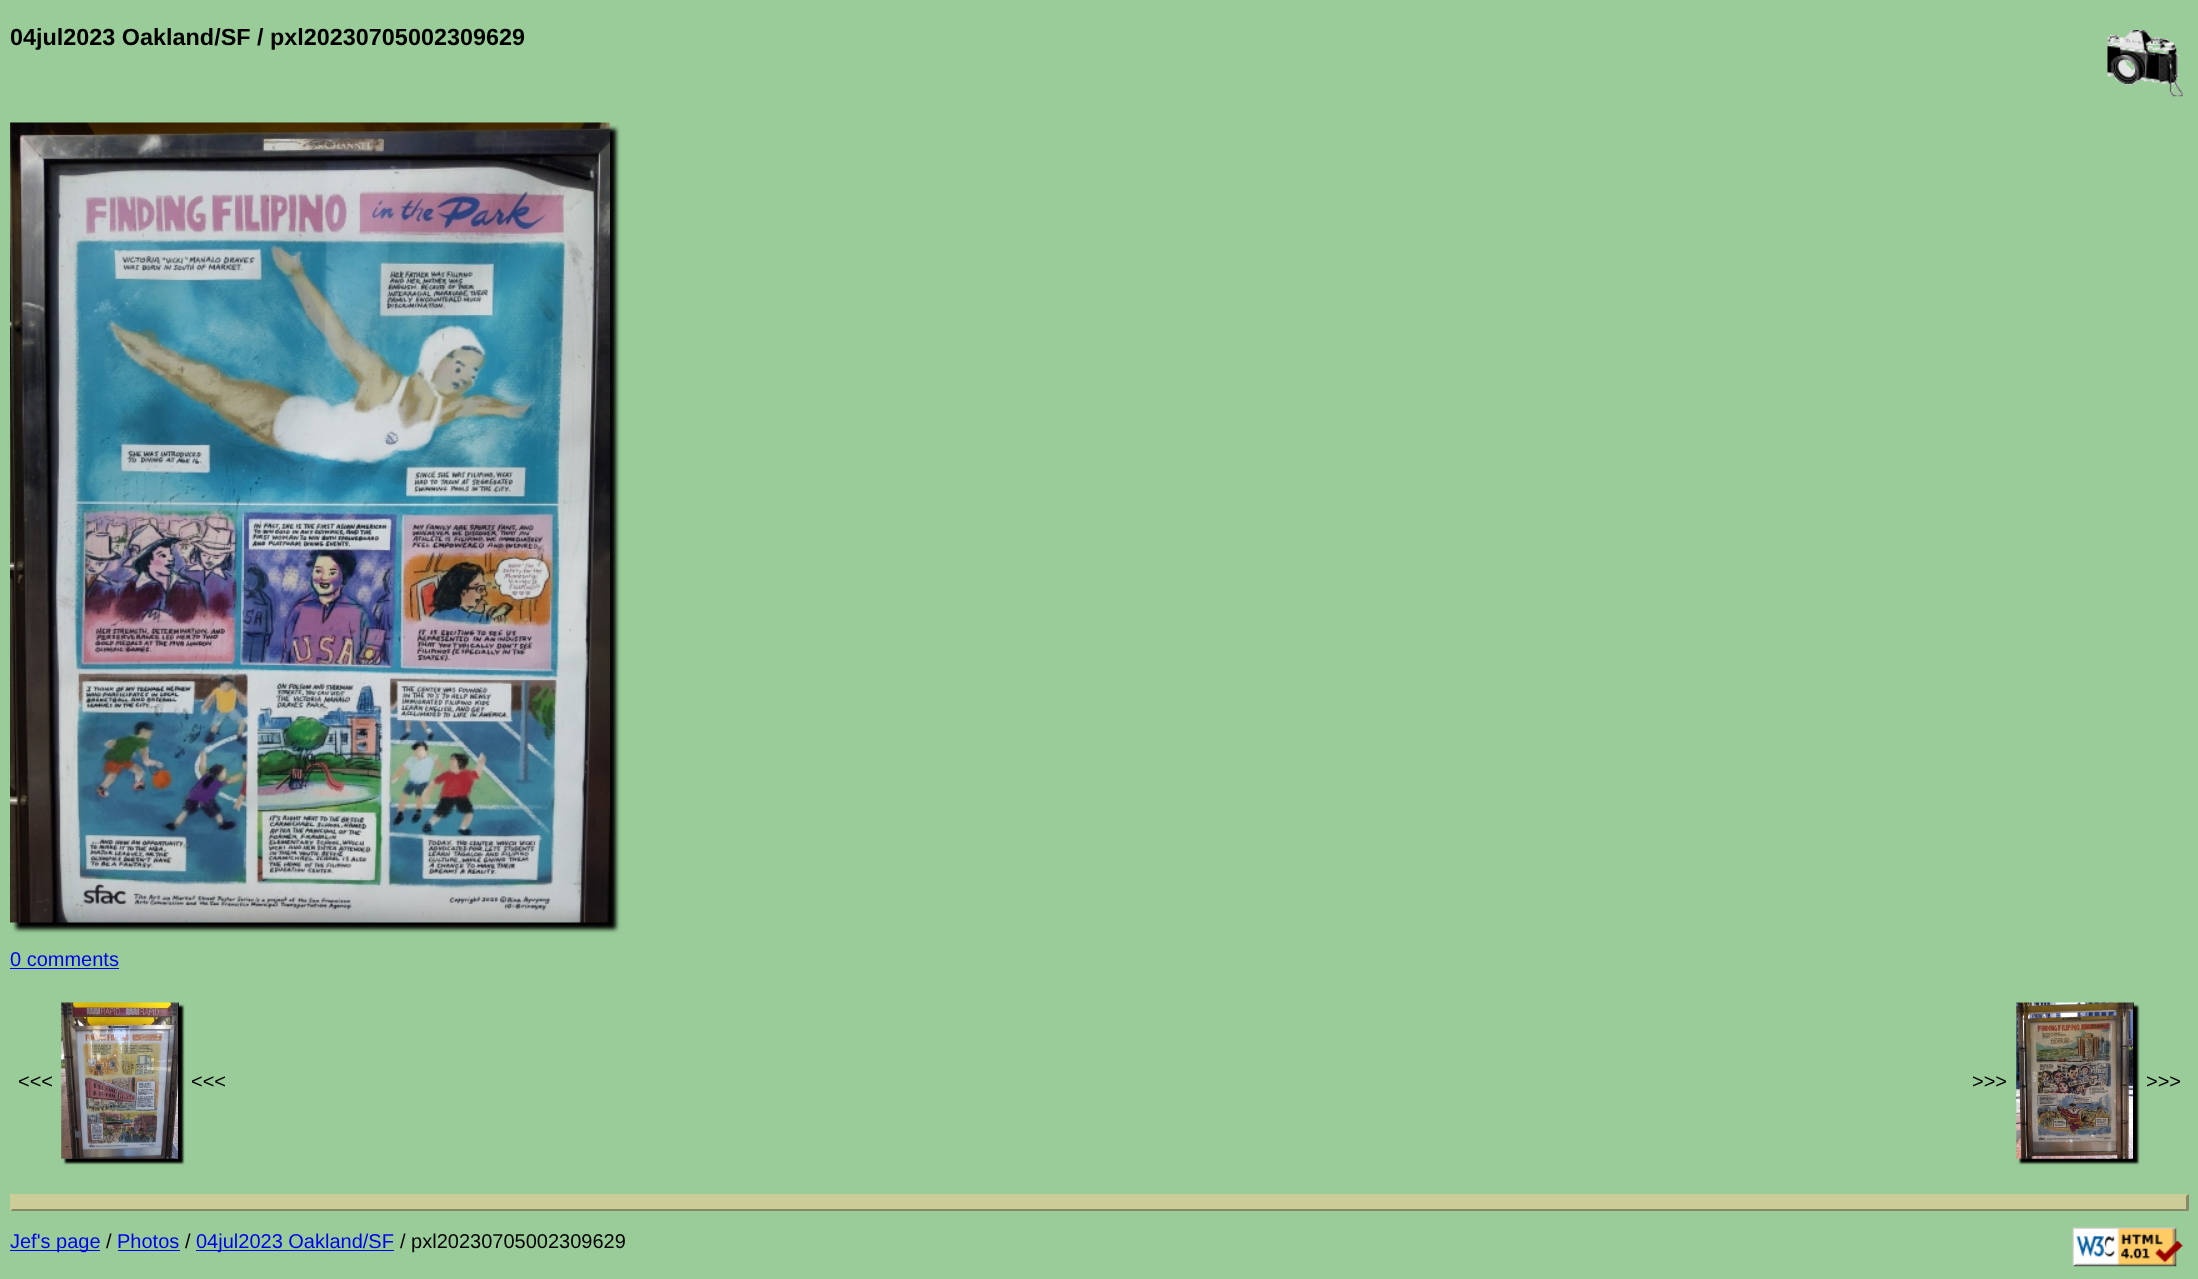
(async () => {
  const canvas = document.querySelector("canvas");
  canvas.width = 2198;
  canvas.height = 1279;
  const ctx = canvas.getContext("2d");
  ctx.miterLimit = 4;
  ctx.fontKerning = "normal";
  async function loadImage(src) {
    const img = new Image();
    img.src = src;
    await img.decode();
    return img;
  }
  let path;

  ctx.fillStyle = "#99cc99";
  ctx.fillRect(0, 0, 2198, 1279);
  ctx.drawImage(await loadImage("img/1.png"), 2107, 30, 76, 67);
  ctx.fillStyle = "#000000";
  ctx.filter = "blur(2px)";
  ctx.beginPath();
  ctx.rect(16, 129, 600, 800);
  ctx.fill();
  ctx.filter = "none";
  ctx.drawImage(await loadImage("img/2.png"), 10, 122, 600, 801);
  ctx.fillStyle = "#0000ee";
  ctx.fillRect(10, 968, 109, 1);
  ctx.fillStyle = "#000000";
  ctx.filter = "blur(1px)";
  ctx.beginPath();
  ctx.rect(65, 1006, 118, 157);
  ctx.fill();
  ctx.filter = "none";
  ctx.drawImage(await loadImage("img/3.png"), 61, 1002, 118, 157);
  ctx.filter = "blur(1px)";
  ctx.beginPath();
  ctx.rect(2020, 1006, 118, 157);
  ctx.fill();
  ctx.filter = "none";
  ctx.drawImage(await loadImage("img/4.png"), 2016, 1002, 118, 157);
  ctx.fillStyle = "#cccc99";
  ctx.fillRect(10, 1194, 2179, 17);
  ctx.fillStyle = "#888866";
  path = new Path2D("M2189 1194V1211L2186 1209V1196Z");
  ctx.fill(path);
  path = new Path2D("M2189 1211H10L12 1209H2186Z");
  ctx.fill(path);
  ctx.fillStyle = "#cccc99";
  path = new Path2D("M10 1211V1194L12.5 1196V1209Z");
  ctx.fill(path);
  for (const [x, y, w, h, color] of [
    [10, 1250, 90, 1, "#0000ee"],
    [118, 1250, 62, 1, "#0000ee"],
    [196, 1250, 198, 1, "#0000ee"],
  ]) {
    ctx.fillStyle = color;
    ctx.fillRect(x, y, w, h);
  }
  ctx.drawImage(await loadImage("img/5.png"), 2072, 1227, 111, 40);
  ctx.font = "bold 23.4px Liberation Sans";
  ctx.fillStyle = "#000000";
  ctx.fillText("04jul2023 Oakland/SF / pxl20230705002309629", 10, 45);
  ctx.font = "20px Liberation Sans";
  ctx.fillStyle = "#0000ee";
  ctx.fillText("0 comments", 10, 966);
  ctx.fillStyle = "#000000";
  for (const [text, x, y] of [
    ["<<<", 18, 1088],
    ["<<<", 191, 1088],
    [">>>", 1972, 1088],
    [">>>", 2146, 1088],
  ]) {
    ctx.fillText(text, x, y);
  }
  ctx.fillStyle = "#0000ee";
  ctx.fillText("Jef's page", 10, 1248);
  ctx.fillStyle = "#000000";
  ctx.fillText("/", 106, 1248);
  ctx.fillStyle = "#0000ee";
  ctx.fillText("Photos", 117, 1248);
  ctx.fillStyle = "#000000";
  ctx.fillText("/", 185, 1248);
  ctx.fillStyle = "#0000ee";
  ctx.fillText("04jul2023 Oakland/SF", 196, 1248);
  ctx.fillStyle = "#000000";
  ctx.fillText("/ pxl20230705002309629", 400, 1248);
})();
